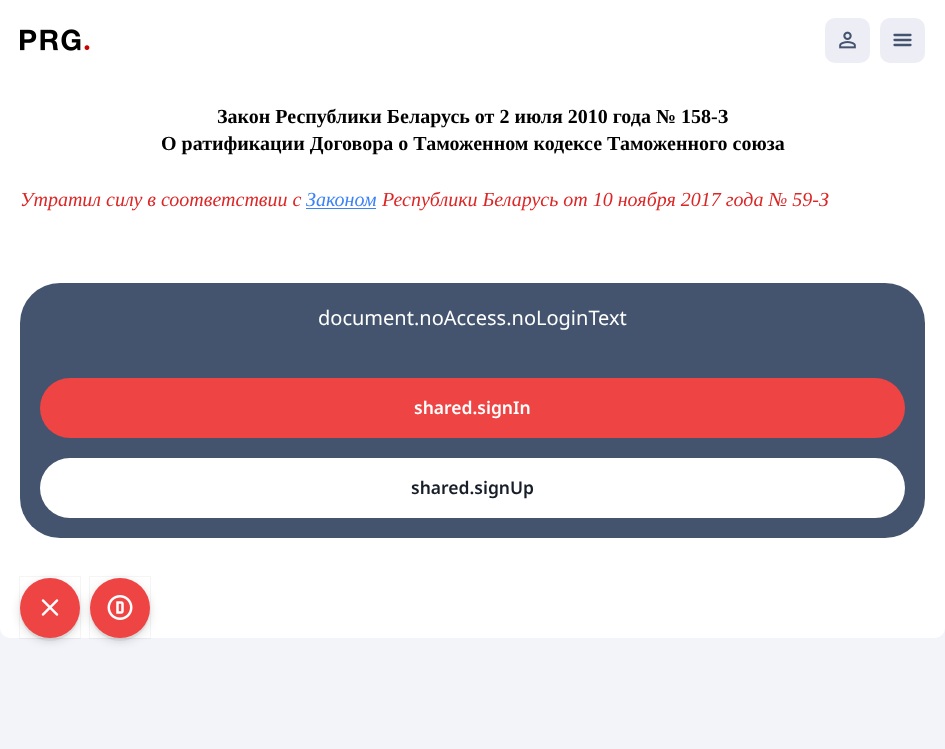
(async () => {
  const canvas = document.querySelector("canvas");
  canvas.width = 945;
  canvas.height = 749;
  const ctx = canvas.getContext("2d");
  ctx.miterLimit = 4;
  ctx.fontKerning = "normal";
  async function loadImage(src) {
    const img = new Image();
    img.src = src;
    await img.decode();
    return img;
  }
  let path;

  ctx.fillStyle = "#ffffff";
  ctx.fillRect(0, 0, 945, 749);
  ctx.drawImage(await loadImage("img/1.png"), 20, 29, 70, 22);
  ctx.fillStyle = "#edeef5";
  ctx.beginPath();
  ctx.roundRect(825, 18, 45, 45, 10);
  ctx.fill();
  ctx.drawImage(await loadImage("img/2.png"), 839, 31, 17, 18);
  ctx.beginPath();
  ctx.roundRect(880, 18, 45, 45, 10);
  ctx.fill();
  path = new Path2D("M894.5 35H910.5M894.5 40H910.5M894.5 45H910.5");
  ctx.strokeStyle = "#44546f";
  ctx.lineWidth = 2.3;
  ctx.lineCap = "round";
  ctx.stroke(path);
  ctx.fillStyle = "#f3f4f9";
  ctx.fillRect(0, 628, 945, 121);
  ctx.fillStyle = "#ffffff";
  ctx.beginPath();
  ctx.roundRect(0, 83, 945, 555, [0, 0, 10, 10]);
  ctx.fill();
  ctx.fillStyle = "#3b82f6";
  ctx.fillRect(306, 208, 70, 1);
  ctx.fillStyle = "#44546f";
  ctx.beginPath();
  ctx.roundRect(20, 283, 905, 255, 40);
  ctx.fill();
  ctx.fillStyle = "#ef4444";
  ctx.beginPath();
  ctx.roundRect(40, 378, 865, 60, 30);
  ctx.fill();
  ctx.fillStyle = "#ffffff";
  ctx.beginPath();
  ctx.roundRect(40, 458, 865, 60, 30);
  ctx.fill();
  ctx.strokeStyle = "rgba(0, 0, 0, 0.04)";
  ctx.lineWidth = 1;
  ctx.strokeRect(19.5, 576.5, 61, 62);
  ctx.fillStyle = "rgba(0, 0, 0, 0.15)";
  ctx.filter = "blur(5px)";
  ctx.beginPath();
  ctx.roundRect(20, 581, 60, 60, 30);
  ctx.fill();
  ctx.filter = "none";
  ctx.fillStyle = "rgba(0, 0, 0, 0.06)";
  ctx.filter = "blur(0.5px)";
  ctx.beginPath();
  ctx.roundRect(20, 581, 60, 60, 30);
  ctx.fill();
  ctx.filter = "none";
  ctx.fillStyle = "#ef4444";
  ctx.beginPath();
  ctx.arc(50, 608, 30, 0, Math.PI * 2);
  ctx.fill();
  ctx.drawImage(await loadImage("img/3.png"), 41, 599, 18, 17);
  ctx.strokeRect(89.5, 576.5, 61, 62);
  ctx.fillStyle = "rgba(0, 0, 0, 0.15)";
  ctx.filter = "blur(5px)";
  ctx.beginPath();
  ctx.roundRect(90, 581, 60, 60, 30);
  ctx.fill();
  ctx.filter = "none";
  ctx.fillStyle = "rgba(0, 0, 0, 0.06)";
  ctx.filter = "blur(0.5px)";
  ctx.beginPath();
  ctx.roundRect(90, 581, 60, 60, 30);
  ctx.fill();
  ctx.filter = "none";
  ctx.fillStyle = "#ef4444";
  ctx.beginPath();
  ctx.arc(120, 608, 30, 0, Math.PI * 2);
  ctx.fill();
  ctx.drawImage(await loadImage("img/4.png"), 107, 595, 26, 25);
  ctx.font = "bold 20px Liberation Serif";
  ctx.fillStyle = "#000000";
  ctx.fillText("Закон Республики Беларусь от 2 июля 2010 года № 158-З", 217, 123);
  ctx.fillText("О ратификации Договора о Таможенном кодексе Таможенного союза", 161, 150);
  ctx.font = "italic 20px Liberation Serif";
  ctx.fillStyle = "#dc2626";
  ctx.fillText("Утратил силу в соответствии с", 20, 206);
  ctx.fillStyle = "#3b82f6";
  ctx.fillText("Законом", 306, 206);
  ctx.fillStyle = "#dc2626";
  ctx.fillText("Республики Беларусь от 10 ноября 2017 года № 59-З", 382, 206);
  ctx.font = "20px Noto Sans";
  ctx.fillStyle = "#ffffff";
  ctx.fillText("document.noAccess.noLoginText", 318, 325);
  ctx.font = "600 17.5px Noto Sans";
  ctx.fillText("shared.signIn", 414, 414);
  ctx.fillStyle = "#171e29";
  ctx.fillText("shared.signUp", 411, 494);
})();
